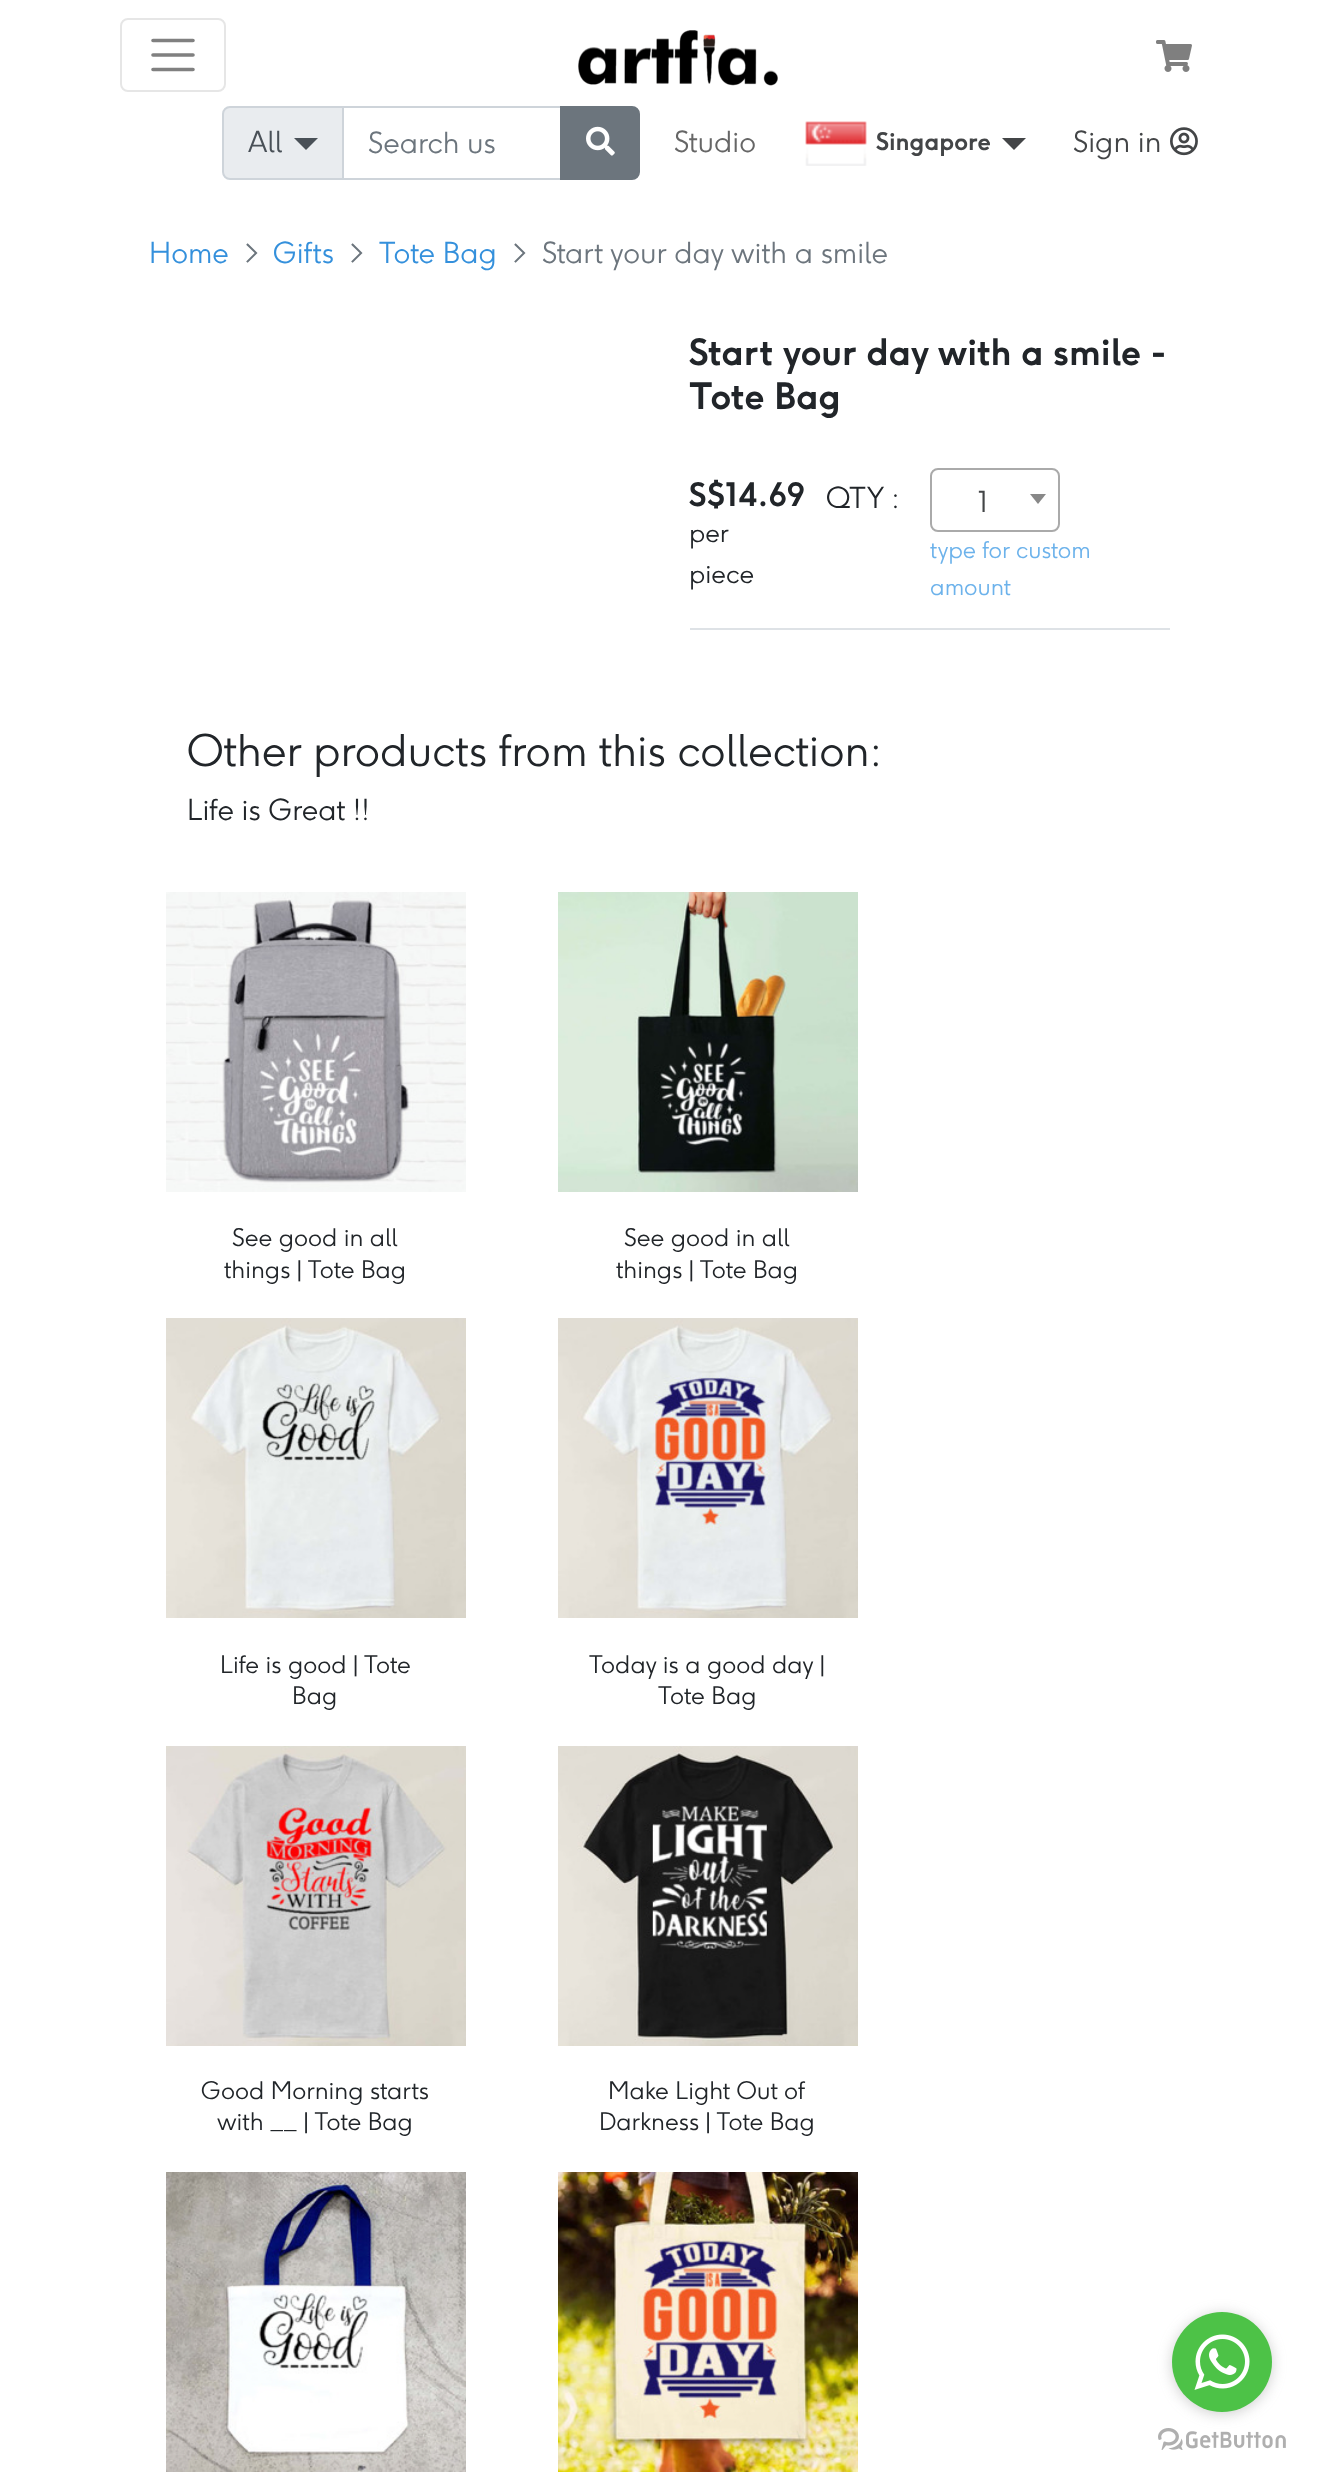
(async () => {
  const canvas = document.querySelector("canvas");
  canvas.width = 1317;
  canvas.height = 2477;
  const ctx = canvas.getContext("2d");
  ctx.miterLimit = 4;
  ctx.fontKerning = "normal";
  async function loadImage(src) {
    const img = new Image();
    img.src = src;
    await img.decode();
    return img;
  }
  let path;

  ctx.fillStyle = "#ffffff";
  ctx.fillRect(0, 0, 1317, 2477);
  ctx.beginPath();
  ctx.roundRect(121, 19, 104, 72, 7);
  ctx.strokeStyle = "#e6e6e6";
  ctx.lineWidth = 2;
  ctx.stroke();
  path = new Path2D("M153 40.5H193M153 55H193M153 69.5H193");
  ctx.strokeStyle = "#808080";
  ctx.lineWidth = 3.6;
  ctx.lineCap = "round";
  ctx.stroke(path);
  ctx.drawImage(await loadImage("img/1.png"), 578, 30, 200, 56);
  ctx.drawImage(await loadImage("img/2.png"), 1156, 40, 36, 32);
  ctx.strokeStyle = "#ced4da";
  ctx.lineWidth = 2;
  ctx.strokeRect(343, 107, 218, 72);
  ctx.fillStyle = "#e9ecef";
  ctx.beginPath();
  ctx.roundRect(223, 107, 120, 72, [7, 0, 0, 7]);
  ctx.fill();
  ctx.stroke();
  ctx.fillStyle = "#495057";
  path = new Path2D("M294 138H318L306 150Z");
  ctx.fill(path);
  ctx.fillStyle = "#6c757d";
  ctx.beginPath();
  ctx.roundRect(561, 107, 78, 72, [0, 7, 7, 0]);
  ctx.fill();
  ctx.strokeStyle = "#6c757d";
  ctx.stroke();
  ctx.drawImage(await loadImage("img/3.png"), 586, 126, 29, 30);
  ctx.drawImage(await loadImage("img/4.png"), 805, 121, 62, 45);
  ctx.fillStyle = "#434547";
  path = new Path2D("M1002 138H1026L1014 150Z");
  ctx.fill(path);
  ctx.drawImage(await loadImage("img/5.png"), 1170, 127, 28, 29);
  ctx.beginPath();
  ctx.roundRect(931, 469, 128, 62, 7);
  ctx.strokeStyle = "#aaaaaa";
  ctx.stroke();
  ctx.fillStyle = "#888888";
  path = new Path2D("M1030 494H1046L1038 504Z");
  ctx.fill(path);
  ctx.fillStyle = "#dee2e6";
  ctx.fillRect(690, 628, 480, 2);
  ctx.drawImage(await loadImage("img/6.png"), 166, 892, 300, 300);
  ctx.drawImage(await loadImage("img/7.png"), 558, 892, 300, 300);
  ctx.drawImage(await loadImage("img/8.png"), 166, 1318, 300, 300);
  ctx.drawImage(await loadImage("img/9.png"), 558, 1318, 300, 300);
  ctx.drawImage(await loadImage("img/10.png"), 166, 1746, 300, 300);
  ctx.drawImage(await loadImage("img/11.png"), 558, 1746, 300, 300);
  ctx.drawImage(await loadImage("img/12.png"), 166, 2172, 300, 300);
  ctx.drawImage(await loadImage("img/13.png"), 558, 2172, 300, 300);
  ctx.drawImage(await loadImage("img/15.png"), 1158, 2428, 128, 22);
  ctx.fillStyle = "rgba(136, 136, 136, 0.4)";
  ctx.filter = "blur(7px)";
  ctx.beginPath();
  ctx.roundRect(1172, 2314, 100, 100, 50);
  ctx.fill();
  ctx.filter = "none";
  ctx.fillStyle = "#4dc247";
  ctx.beginPath();
  ctx.arc(1222, 2362, 50, 0, Math.PI * 2);
  ctx.fill();
  ctx.drawImage(await loadImage("img/14.png"), 1194, 2334, 56, 56);
  ctx.font = "300 28.75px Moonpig";
  ctx.fillStyle = "#495057";
  ctx.fillText("All", 248, 152);
  ctx.fillStyle = "#6c757d";
  ctx.fillText("Search us", 368, 153);
  ctx.fillStyle = "#666666";
  ctx.fillText("Studio", 674, 152);
  ctx.font = "bold 24px Moonpig";
  ctx.fillStyle = "#434547";
  ctx.fillText("Singapore", 876, 150);
  ctx.font = "300 28.75px Moonpig";
  ctx.fillText("Sign in", 1073, 152);
  ctx.fillStyle = "#3490dc";
  ctx.fillText("Home", 149, 263);
  ctx.fillStyle = "#6c757d";
  ctx.fillText(">", 245, 263);
  ctx.fillStyle = "#3490dc";
  ctx.fillText("Gifts", 273, 263);
  ctx.fillStyle = "#6c757d";
  ctx.fillText(">", 350, 263);
  ctx.fillStyle = "#3490dc";
  ctx.fillText("Tote Bag", 379, 263);
  ctx.fillStyle = "#6c757d";
  ctx.fillText(">", 513, 263);
  ctx.fillText("Start your day with a smile", 542, 263);
  ctx.font = "bold 36px Moonpig";
  ctx.fillStyle = "#212529";
  ctx.fillText("Start your day with a smile -", 689, 365);
  ctx.fillText("Tote Bag", 689, 409);
  ctx.font = "bold 32px Moonpig";
  ctx.fillText("S$14.69", 689, 506);
  ctx.font = "300 25.5px Moonpig";
  ctx.fillText("per", 689, 542);
  ctx.fillText("piece", 689, 583);
  ctx.font = "300 28.75px Moonpig";
  ctx.fillText("QTY :", 826, 508);
  ctx.fillStyle = "#434547";
  ctx.fillText("1", 978, 512);
  ctx.font = "300 23px Moonpig";
  ctx.fillStyle = "#6cb2eb";
  ctx.fillText("type for custom", 930, 558);
  ctx.fillText("amount", 930, 595);
  ctx.font = "300 43.25px Moonpig";
  ctx.fillStyle = "#212529";
  ctx.fillText("Other products from this collection:", 187, 766);
  ctx.font = "300 28.75px Moonpig";
  ctx.fillText("Life is Great !!", 187, 820);
  ctx.font = "300 24px Moonpig";
  for (const [text, x, y] of [
    ["See good in all", 232, 1246],
    ["things | Tote Bag", 224, 1278],
    ["See good in all", 624, 1246],
    ["things | Tote Bag", 616, 1278],
    ["Life is good | Tote", 220, 1673],
    ["Bag", 292, 1704],
    ["Today is a good day |", 589, 1673],
    ["Tote Bag", 658, 1704],
    ["Good Morning starts", 201, 2099],
    ["with __ | Tote Bag", 217, 2130],
    ["Make Light Out of", 608, 2099],
    ["Darkness | Tote Bag", 599, 2130],
  ]) {
    ctx.fillText(text, x, y);
  }
})();
